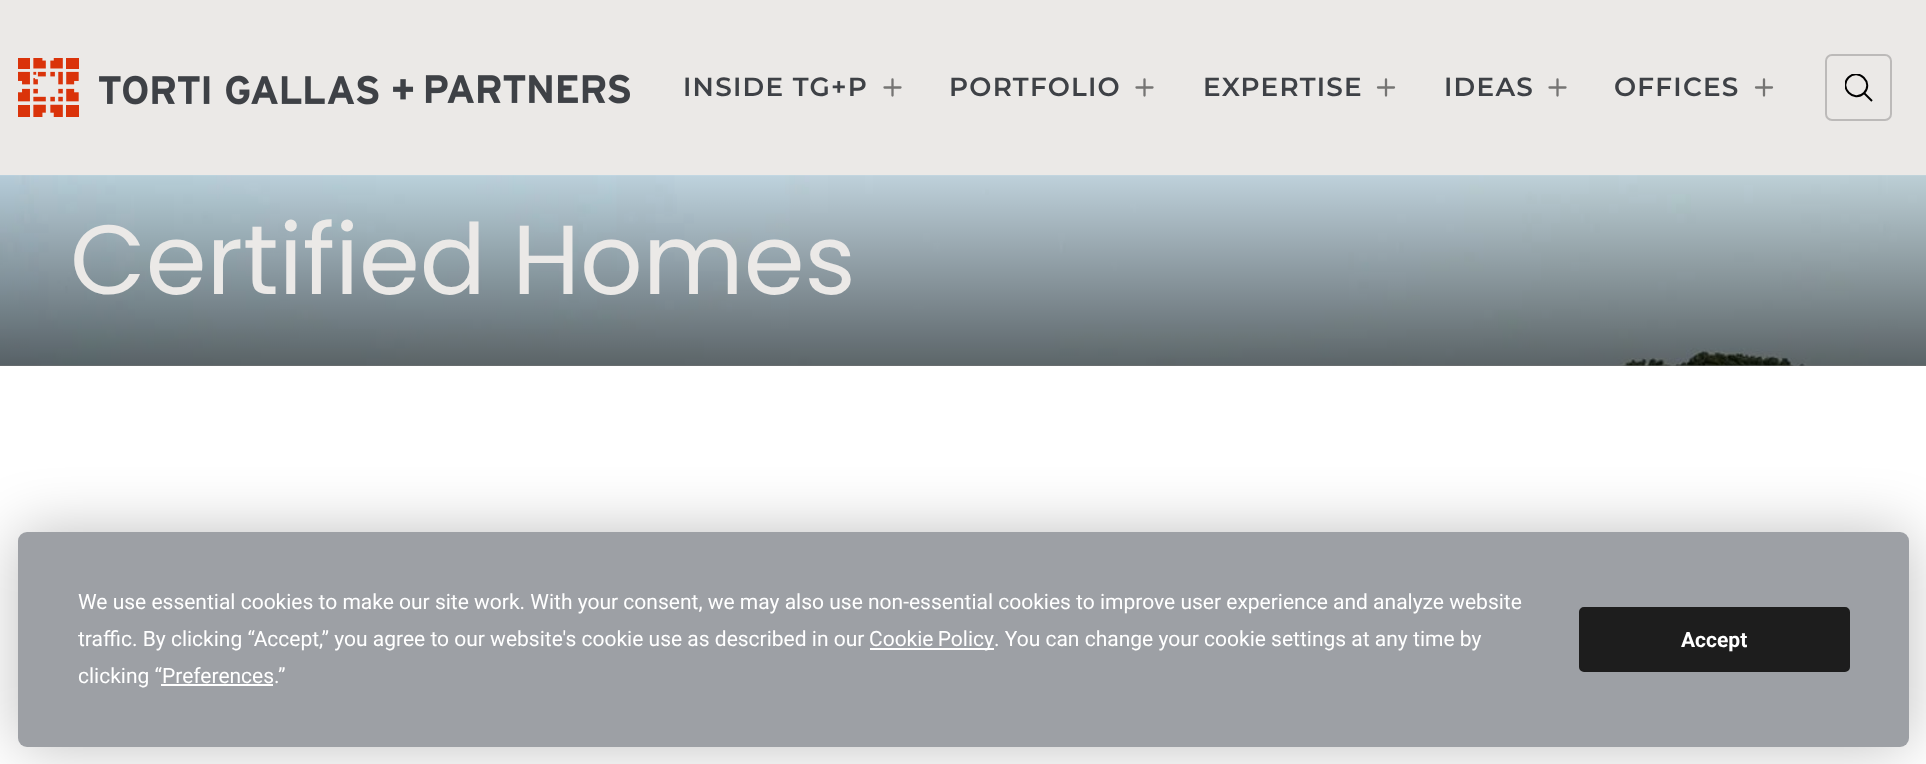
(async () => {
  const canvas = document.querySelector("canvas");
  canvas.width = 1926;
  canvas.height = 764;
  const ctx = canvas.getContext("2d");
  ctx.miterLimit = 4;
  ctx.fontKerning = "normal";
  async function loadImage(src) {
    const img = new Image();
    img.src = src;
    await img.decode();
    return img;
  }
  let gradient, path;

  ctx.fillStyle = "#ffffff";
  ctx.fillRect(0, 0, 1926, 764);
  ctx.fillStyle = "#ebe9e7";
  ctx.fillRect(0, 0, 1926, 175);
  ctx.drawImage(await loadImage("img/1.png"), 18, 58, 612, 59);
  path = new Path2D("M892.5 79.5V95.5M884.5 87.5H900.5");
  ctx.strokeStyle = "#767574";
  ctx.lineWidth = 2.3;
  ctx.lineCap = "round";
  ctx.lineJoin = "round";
  ctx.stroke(path);
  path = new Path2D("M1144.5 79.5V95.5M1136.5 87.5H1152.5");
  ctx.stroke(path);
  path = new Path2D("M1386 79.5V95.5M1378 87.5H1394");
  ctx.stroke(path);
  path = new Path2D("M1557.5 79.5V95.5M1549.5 87.5H1565.5");
  ctx.stroke(path);
  path = new Path2D("M1764 79.5V95.5M1756 87.5H1772");
  ctx.stroke(path);
  ctx.beginPath();
  ctx.roundRect(1826, 55, 65, 65, 6);
  ctx.strokeStyle = "#bcbab9";
  ctx.lineWidth = 2;
  ctx.lineJoin = "miter";
  ctx.stroke();
  ctx.save();
  ctx.beginPath();
  ctx.rect(1845, 74, 28, 28);
  ctx.clip();
  path = new Path2D("M1848.5 77.5C1858.5 67.5 1874 83 1864 93C1854 103 1838.5 87.5 1848.5 77.5Z");
  ctx.strokeStyle = "#000000";
  ctx.lineCap = "butt";
  ctx.stroke(path);
  ctx.restore();
  path = new Path2D("M1864 93L1872 101");
  ctx.strokeStyle = "#000000";
  ctx.lineCap = "butt";
  ctx.stroke(path);
  ctx.drawImage(await loadImage("img/2.png"), 0, 175, 1926, 191);
  gradient = ctx.createLinearGradient(963, 175, 963, 366);
  gradient.addColorStop(0, "rgba(0, 0, 0, 0.02)");
  gradient.addColorStop(1, "rgba(0, 0, 0, 0.53)");
  ctx.fillStyle = gradient;
  ctx.fillRect(0, 176, 1926, 190);
  ctx.fillStyle = "rgba(0, 0, 0, 0.25)";
  ctx.filter = "blur(30.5px)";
  ctx.beginPath();
  ctx.roundRect(18, 532, 1891, 215, 9);
  ctx.fill();
  ctx.filter = "none";
  ctx.fillStyle = "#9da0a5";
  ctx.beginPath();
  ctx.roundRect(18, 532, 1891, 215, 9);
  ctx.fill();
  ctx.fillStyle = "#ffffff";
  ctx.fillRect(870, 648, 124, 2);
  ctx.fillRect(161, 684, 112, 2);
  ctx.fillStyle = "#1d1d1d";
  ctx.beginPath();
  ctx.roundRect(1580, 608, 269, 63, 4);
  ctx.fill();
  ctx.strokeStyle = "#1d1d1d";
  ctx.stroke();
  ctx.letterSpacing = "1.25px";
  ctx.font = "600 26.25px Montserrat";
  ctx.fillStyle = "#3e4146";
  for (const [text, x, y] of [
    ["INSIDE TG+P", 683, 96],
    ["PORTFOLIO", 949, 96],
    ["EXPERTISE", 1203, 96],
    ["IDEAS", 1444, 96],
    ["OFFICES", 1614, 96],
  ]) {
    ctx.fillText(text, x, y);
  }
  ctx.letterSpacing = "0px";
  ctx.font = "98px Poppins";
  ctx.fillStyle = "#ebe9e7";
  ctx.fillText("Certified Homes", 70, 294);
  ctx.font = "21px Roboto";
  ctx.fillStyle = "#ffffff";
  ctx.fillText("We use essential cookies to make our site work. With your consent, we may also use non-essential cookies to improve user experience and analyze website", 78, 609);
  ctx.fillText("traffic. By clicking “Accept,” you agree to our website's cookie use as described in our", 78, 646);
  ctx.wordSpacing = "-1px";
  ctx.fillText("Cookie Policy", 869, 646);
  ctx.wordSpacing = "0px";
  ctx.fillText(". You can change your cookie settings at any time by", 994, 646);
  ctx.fillText("clicking “Preferences.”", 78, 683);
  ctx.font = "bold 21px Roboto";
  ctx.fillText("Accept", 1681, 647);
})();
